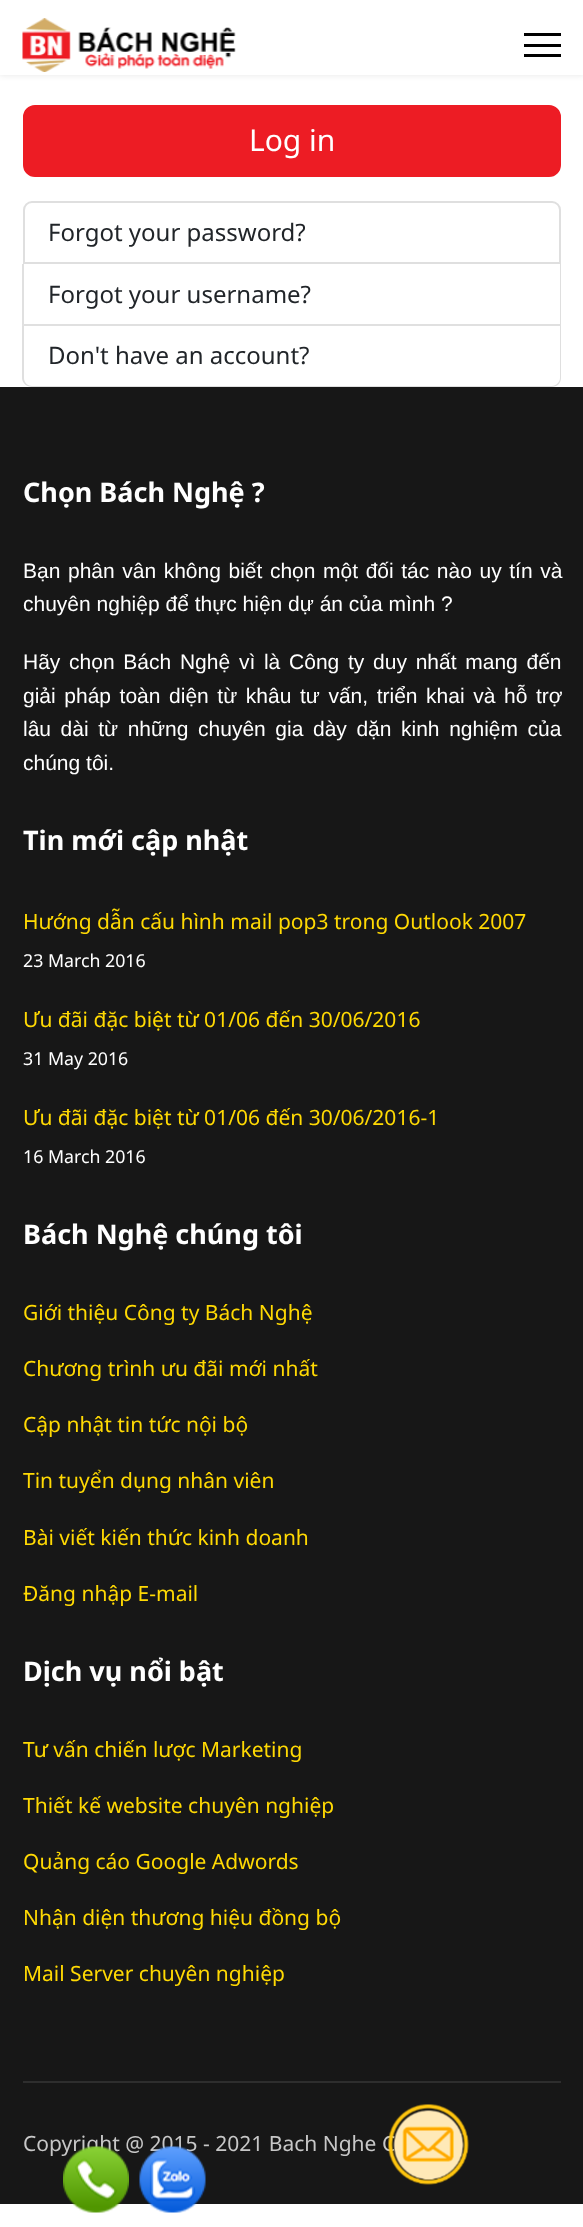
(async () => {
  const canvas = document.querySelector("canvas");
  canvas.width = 583;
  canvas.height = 2227;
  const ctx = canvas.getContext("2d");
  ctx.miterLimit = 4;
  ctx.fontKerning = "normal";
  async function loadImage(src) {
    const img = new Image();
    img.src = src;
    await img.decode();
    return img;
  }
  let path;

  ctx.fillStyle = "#ffffff";
  ctx.fillRect(0, 0, 583, 2227);
  ctx.fillStyle = "rgba(0, 0, 0, 0.1)";
  ctx.filter = "blur(3px)";
  ctx.beginPath();
  ctx.rect(0, 0, 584, 75);
  ctx.fill();
  ctx.filter = "none";
  ctx.fillStyle = "#ffffff";
  ctx.fillRect(0, 0, 583, 75);
  ctx.drawImage(await loadImage("img/1.png"), 22, 18, 214, 54);
  for (const [x, y, w, h, color] of [
    [524, 33, 37, 3, "#000000"],
    [524, 44, 37, 3, "#000000"],
    [524, 54, 37, 3, "#000000"],
  ]) {
    ctx.fillStyle = color;
    ctx.fillRect(x, y, w, h);
  }
  ctx.fillStyle = "#ed1c24";
  ctx.beginPath();
  ctx.roundRect(24, 106, 536, 70, 11);
  ctx.fill();
  ctx.strokeStyle = "#ed1c24";
  ctx.lineWidth = 2;
  ctx.stroke();
  ctx.beginPath();
  ctx.roundRect(24, 202, 536, 61, [8, 8, 0, 0]);
  ctx.strokeStyle = "#dfdfdf";
  ctx.stroke();
  ctx.fillStyle = "#dfdfdf";
  path = new Path2D("M561 264V326L560 324V264Z");
  ctx.fill(path);
  ctx.fillStyle = "rgba(0, 0, 0, 0.12)";
  path = new Path2D("M561 326H22L24 324H560Z");
  ctx.fill(path);
  path = new Path2D("M22 326V264H24V324Z");
  ctx.fill(path);
  ctx.fillStyle = "#dfdfdf";
  path = new Path2D("M22 326H561V378C561 383 557 387 552 387H32C27 387 22 383 22 378ZM24 326H560V378C560 382 556 386 552 386H32C27 386 24 382 24 378Z");
  ctx.fill(path, "evenodd");
  ctx.fillStyle = "#171717";
  ctx.fillRect(0, 387, 583, 1817);
  ctx.fillStyle = "#2e2e2e";
  ctx.fillRect(23, 2081, 538, 2);
  ctx.font = "30px Noto Sans";
  ctx.fillStyle = "#ffffff";
  ctx.fillText("Log in", 249, 151);
  ctx.font = "24px Noto Sans";
  ctx.fillStyle = "#212529";
  for (const [text, x, y] of [
    ["Forgot your password?", 48, 241],
    ["Forgot your username?", 48, 303],
    ["Don't have an account?", 48, 364],
  ]) {
    ctx.fillText(text, x, y);
  }
  ctx.font = "bold 27px Noto Sans";
  ctx.fillStyle = "#ffffff";
  ctx.fillText("Chọn Bách Nghệ ?", 23, 502);
  ctx.wordSpacing = "1.75px";
  ctx.font = "21px Liberation Sans";
  ctx.fillText("Bạn phân vân không biết chọn một đối tác nào uy tín và", 23, 578);
  ctx.wordSpacing = "0px";
  ctx.fillText("chuyên nghiệp để thực hiện dự án của mình ?", 23, 611);
  ctx.wordSpacing = "2.9px";
  ctx.fillText("Hãy chọn Bách Nghệ vì là Công ty duy nhất mang đến", 23, 669);
  ctx.wordSpacing = "2.75px";
  ctx.fillText("giải pháp toàn diện từ khâu tư vấn, triển khai và hỗ trợ", 23, 703);
  ctx.wordSpacing = "3.75px";
  ctx.fillText("lâu dài từ những chuyên gia dày dặn kinh nghiệm của", 23, 736);
  ctx.wordSpacing = "0px";
  ctx.fillText("chúng tôi.", 23, 770);
  ctx.font = "bold 27px Noto Sans";
  ctx.fillText("Tin mới cập nhật", 23, 850);
  ctx.font = "21px Noto Sans";
  ctx.fillStyle = "#ffd903";
  ctx.fillText("Hướng dẫn cấu hình mail pop3 trong Outlook 2007", 23, 929);
  ctx.font = "17.75px Noto Sans";
  ctx.fillStyle = "#ffffff";
  ctx.fillText("23 March 2016", 23, 967);
  ctx.font = "21px Noto Sans";
  ctx.fillStyle = "#ffd903";
  ctx.fillText("Ưu đãi đặc biệt từ 01/06 đến 30/06/2016", 23, 1027);
  ctx.font = "17.75px Noto Sans";
  ctx.fillStyle = "#ffffff";
  ctx.fillText("31 May 2016", 23, 1065);
  ctx.font = "21px Noto Sans";
  ctx.fillStyle = "#ffd903";
  ctx.fillText("Ưu đãi đặc biệt từ 01/06 đến 30/06/2016-1", 23, 1125);
  ctx.font = "17.75px Noto Sans";
  ctx.fillStyle = "#ffffff";
  ctx.fillText("16 March 2016", 23, 1163);
  ctx.font = "bold 27px Noto Sans";
  ctx.fillText("Bách Nghệ chúng tôi", 23, 1244);
  ctx.font = "21px Noto Sans";
  ctx.fillStyle = "#ffd903";
  for (const [text, x, y] of [
    ["Giới thiệu Công ty Bách Nghệ", 23, 1320],
    ["Chương trình ưu đãi mới nhất", 23, 1376],
    ["Cập nhật tin tức nội bộ", 23, 1432],
    ["Tin tuyển dụng nhân viên", 23, 1488],
    ["Bài viết kiến thức kinh doanh", 23, 1545],
    ["Đăng nhập E-mail", 23, 1601],
  ]) {
    ctx.fillText(text, x, y);
  }
  ctx.font = "bold 27px Noto Sans";
  ctx.fillStyle = "#ffffff";
  ctx.fillText("Dịch vụ nổi bật", 23, 1681);
  ctx.font = "21px Noto Sans";
  ctx.fillStyle = "#ffd903";
  for (const [text, x, y] of [
    ["Tư vấn chiến lược Marketing", 23, 1757],
    ["Thiết kế website chuyên nghiệp", 23, 1813],
    ["Quảng cáo Google Adwords", 23, 1869],
    ["Nhận diện thương hiệu đồng bộ", 23, 1925],
    ["Mail Server chuyên nghiệp", 23, 1981],
  ]) {
    ctx.fillText(text, x, y);
  }
  ctx.fillStyle = "#c7c7c7";
  ctx.fillText("Copyright @ 2015 - 2021 Bach Nghe C", 23, 2151);
  ctx.drawImage(await loadImage("img/2.png"), 63, 2146, 66, 67);
  ctx.drawImage(await loadImage("img/3.png"), 139, 2146, 67, 67);
  ctx.drawImage(await loadImage("img/4.png"), 388, 2104, 81, 81);
})();
